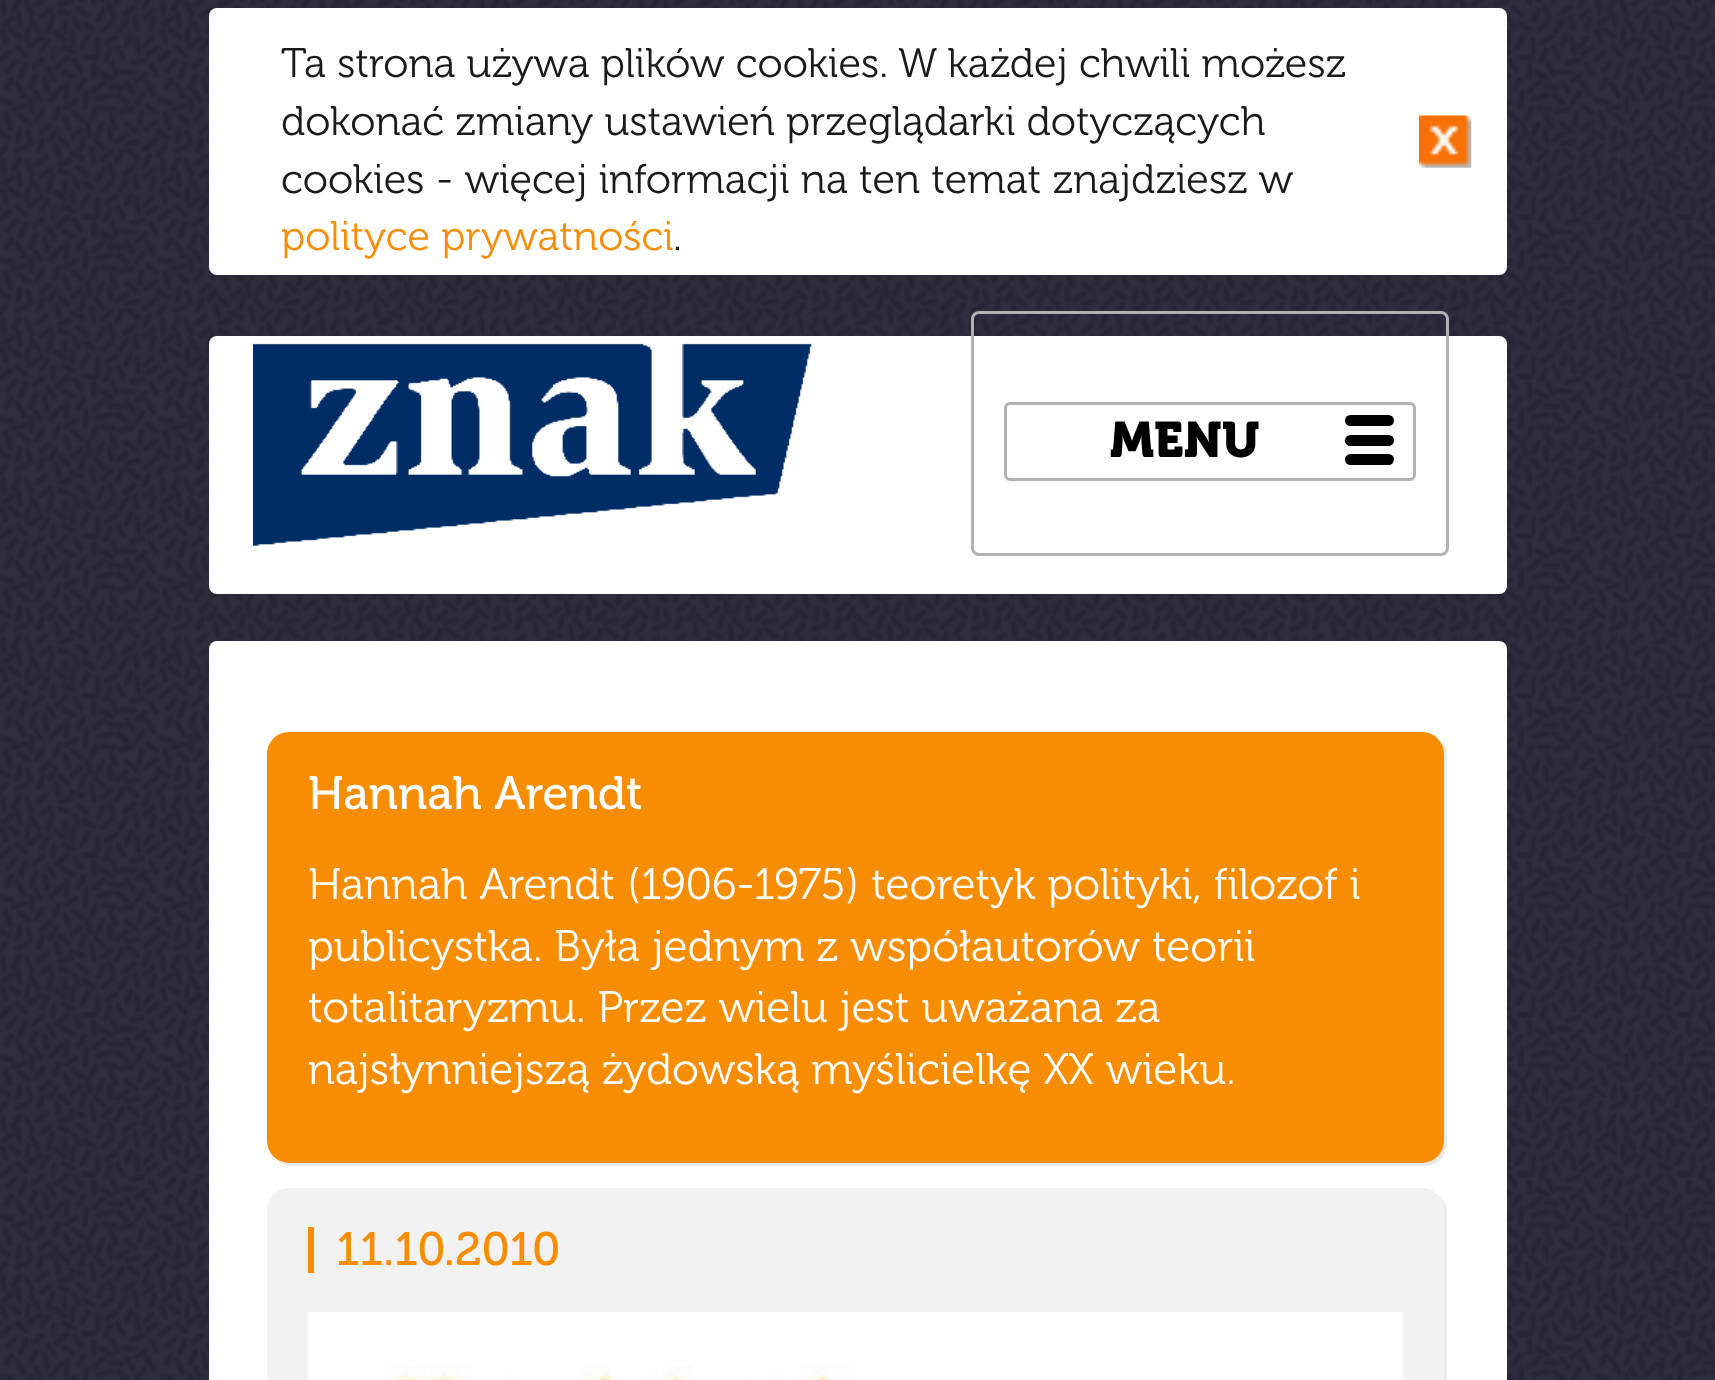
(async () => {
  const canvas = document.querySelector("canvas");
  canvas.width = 1715;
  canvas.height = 1380;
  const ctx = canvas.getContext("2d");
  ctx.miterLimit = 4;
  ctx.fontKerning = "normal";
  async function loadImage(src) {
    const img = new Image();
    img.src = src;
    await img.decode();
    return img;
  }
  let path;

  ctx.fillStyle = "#ffffff";
  ctx.fillRect(0, 0, 1715, 1380);
  ctx.drawImage(await loadImage("img/1.png"), 0, 0, 1715, 1380);
  ctx.beginPath();
  ctx.roundRect(209, 8, 1298, 267, 8);
  ctx.fill();
  ctx.drawImage(await loadImage("img/2.png"), 1419, 115, 53, 53);
  ctx.beginPath();
  ctx.roundRect(209, 336, 1298, 258, 8);
  ctx.fill();
  ctx.drawImage(await loadImage("img/3.png"), 253, 343, 559, 203);
  ctx.beginPath();
  ctx.roundRect(972.5, 312.5, 475, 242, 6.5);
  ctx.strokeStyle = "#b1b1b6";
  ctx.lineWidth = 3;
  ctx.stroke();
  ctx.beginPath();
  ctx.roundRect(1005.5, 403.5, 409, 76, 4.5);
  ctx.stroke();
  ctx.fillStyle = "#000000";
  ctx.beginPath();
  ctx.roundRect(1345, 415, 49, 11, 5.5);
  ctx.fill();
  ctx.beginPath();
  ctx.roundRect(1345, 435, 49, 11, 5.5);
  ctx.fill();
  ctx.beginPath();
  ctx.roundRect(1345, 454, 49, 11, 5.5);
  ctx.fill();
  ctx.fillStyle = "#ffffff";
  ctx.beginPath();
  ctx.roundRect(209, 641, 1298, 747, 8);
  ctx.fill();
  ctx.fillStyle = "#e9e9e9";
  path = new Path2D("M276 1159C280 1163 286 1166 292 1166H1425C1437 1166 1447 1156 1447 1144V756C1447 748 1443 741 1437 737C1441 741 1444 747 1444 754V1141C1444 1153 1434 1163 1422 1163H289C284 1163 280 1162 276 1159Z");
  ctx.fill(path);
  ctx.fillStyle = "#f78d03";
  ctx.beginPath();
  ctx.roundRect(268.5, 733.5, 1174, 428, 20.5);
  ctx.fill();
  ctx.strokeStyle = "#f78d03";
  ctx.stroke();
  ctx.fillStyle = "#e9e9e9";
  path = new Path2D("M276 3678C280 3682 286 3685 292 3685H1425C1437 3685 1447 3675 1447 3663V1213C1447 1206 1444 1199 1438 1195C1442 1199 1444 1204 1444 1210V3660C1444 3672 1434 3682 1422 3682H289C284 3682 280 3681 276 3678Z");
  ctx.fill(path);
  ctx.fillStyle = "#f2f2f2";
  ctx.beginPath();
  ctx.roundRect(268.5, 1189.5, 1174, 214, 20.5);
  ctx.fill();
  ctx.strokeStyle = "#f2f2f2";
  ctx.stroke();
  ctx.fillStyle = "#f78d03";
  ctx.fillRect(308, 1227, 6, 46);
  ctx.drawImage(await loadImage("img/4.png"), 308, 1312, 1095, 68);
  ctx.font = "300 41.25px 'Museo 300'";
  ctx.fillStyle = "#1a1a1a";
  for (const [text, x, y] of [
    ["Ta strona używa plików cookies. W każdej chwili możesz", 281, 77],
    ["dokonać zmiany ustawień przeglądarki dotyczących", 281, 135],
    ["cookies - więcej informacji na ten temat znajdziesz w", 281, 193],
  ]) {
    ctx.fillText(text, x, y);
  }
  ctx.fillStyle = "#f78d03";
  ctx.fillText("polityce prywatności", 281, 250);
  ctx.fillStyle = "#1a1a1a";
  ctx.fillText(".", 673, 250);
  ctx.font = "bold 49.5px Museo";
  ctx.fillStyle = "#000000";
  ctx.fillText("MENU", 1110, 457);
  ctx.font = "46.75px Museo";
  ctx.fillStyle = "#ffffff";
  ctx.fillText("Hannah Arendt", 308, 809);
  ctx.font = "300 44px 'Museo 300'";
  for (const [text, x, y] of [
    ["Hannah Arendt (1906-1975) teoretyk polityki, filozof i", 308, 899],
    ["publicystka. Była jednym z współautorów teorii", 308, 961],
    ["totalitaryzmu. Przez wielu jest uważana za", 308, 1022],
    ["najsłynniejszą żydowską myślicielkę XX wieku.", 308, 1084],
  ]) {
    ctx.fillText(text, x, y);
  }
  ctx.font = "46.75px Museo";
  ctx.fillStyle = "#f78d03";
  ctx.fillText("11.10.2010", 336, 1265);
})();
